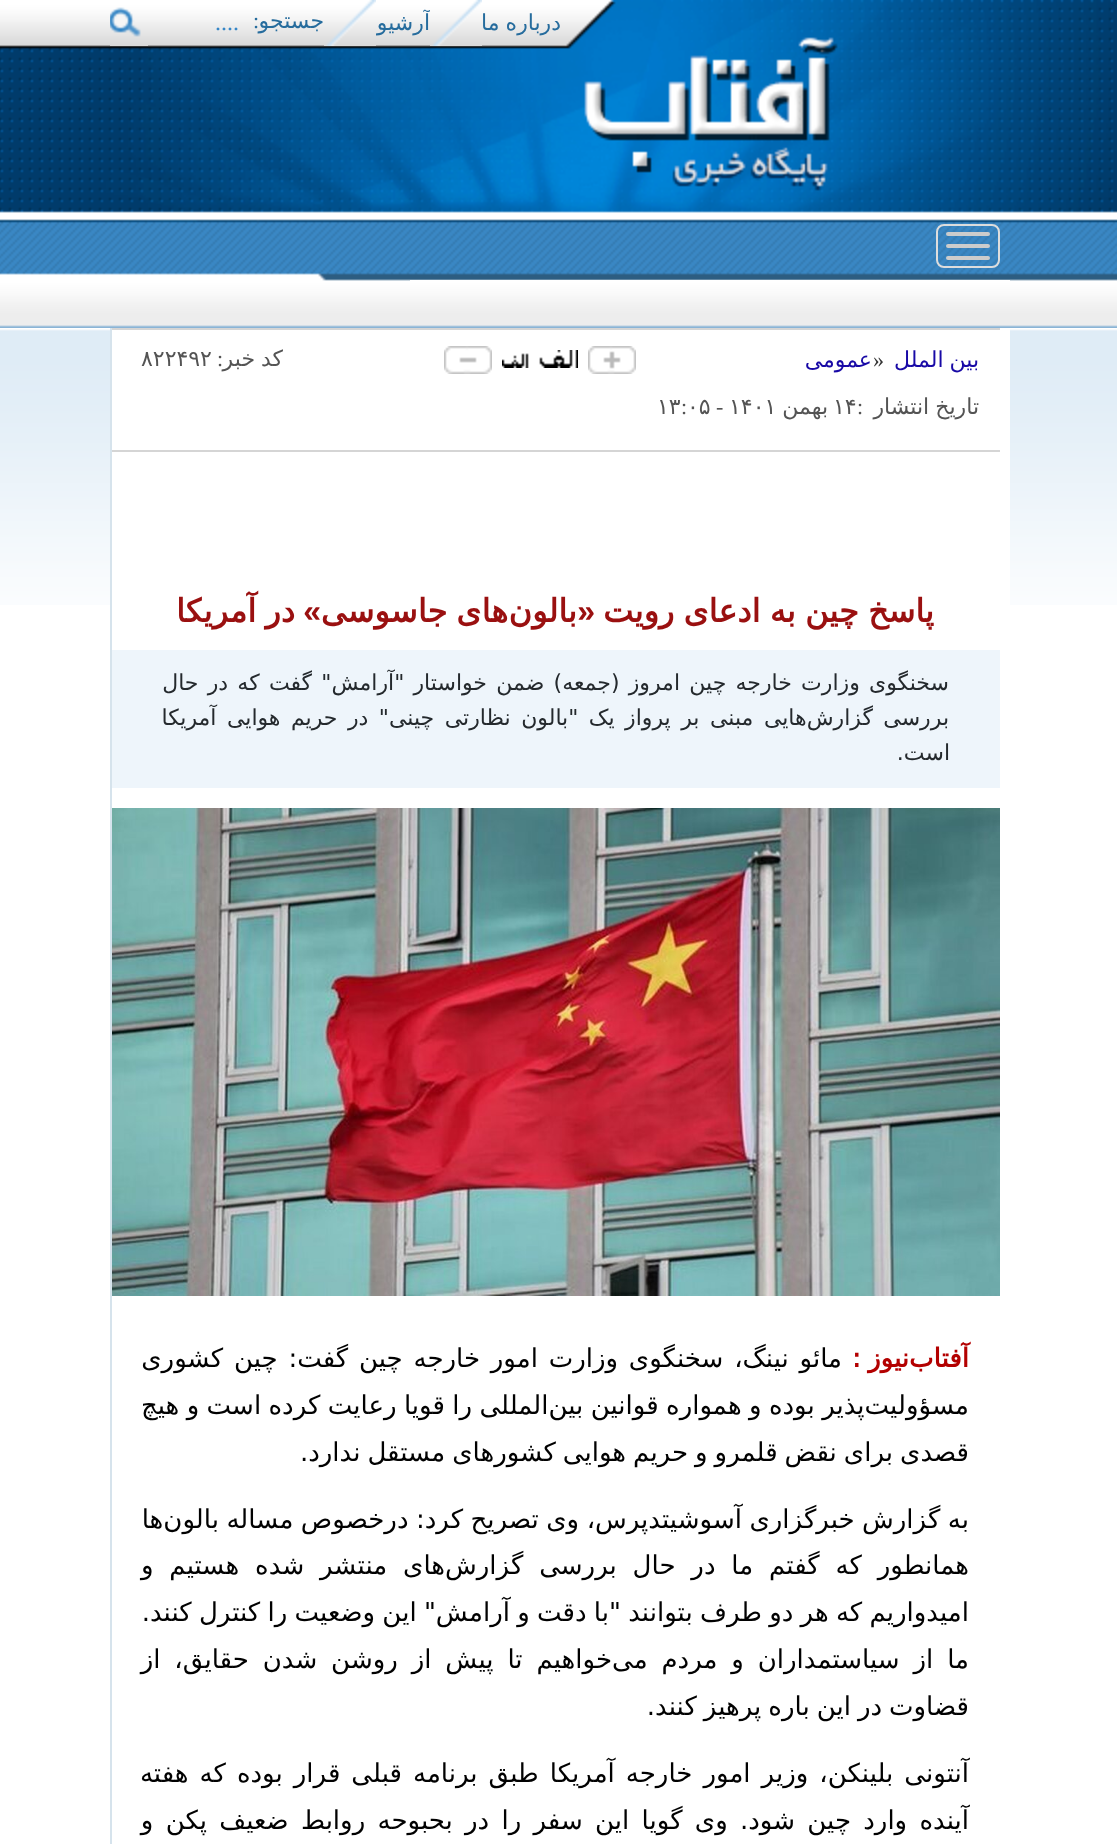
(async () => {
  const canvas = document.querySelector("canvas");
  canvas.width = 1117;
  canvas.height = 1844;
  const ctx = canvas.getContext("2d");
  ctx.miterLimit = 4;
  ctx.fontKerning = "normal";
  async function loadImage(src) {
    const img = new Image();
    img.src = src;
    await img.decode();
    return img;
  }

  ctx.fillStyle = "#ffffff";
  ctx.fillRect(0, 0, 1117, 1844);
  ctx.drawImage(await loadImage("img/1.png"), 0, 0, 1117, 328);
  ctx.drawImage(await loadImage("img/3.png"), 110, 7, 38, 39);
  ctx.beginPath();
  ctx.roundRect(937, 225, 62, 42, 7);
  ctx.strokeStyle = "#dddddd";
  ctx.lineWidth = 2;
  ctx.stroke();
  ctx.fillStyle = "#cccccc";
  ctx.beginPath();
  ctx.roundRect(946, 232, 44, 4, 2);
  ctx.fill();
  ctx.beginPath();
  ctx.roundRect(946, 244, 44, 4, 2);
  ctx.fill();
  ctx.beginPath();
  ctx.roundRect(946, 256, 44, 4, 2);
  ctx.fill();
  ctx.fillStyle = "#ffffff";
  ctx.fillRect(410, 280, 600, 1);
  ctx.drawImage(await loadImage("img/4.png"), 618, 290, 350, 26);
  ctx.drawImage(await loadImage("img/5.png"), 0, 329, 1117, 276);
  for (const [x, y, w, h, color] of [
    [112, 329, 898, 276, "#ffffff"],
    [110, 328, 2, 1516, "#d6e3ec"],
    [112, 328, 888, 2, "#d5d5d5"],
    [112, 450, 888, 2, "#d5d5d5"],
  ]) {
    ctx.fillStyle = color;
    ctx.fillRect(x, y, w, h);
  }
  ctx.drawImage(await loadImage("img/6.png"), 588, 346, 48, 28);
  ctx.drawImage(await loadImage("img/7.png"), 502, 350, 76, 18);
  ctx.drawImage(await loadImage("img/8.png"), 444, 346, 48, 28);
  ctx.fillStyle = "#eef5fb";
  ctx.fillRect(112, 650, 888, 138);
  ctx.drawImage(await loadImage("img/9.png"), 112, 808, 888, 488);
  ctx.wordSpacing = "-1px";
  ctx.direction = "rtl";
  ctx.font = "22px DejaVu Sans";
  ctx.fillStyle = "#266c9d";
  ctx.fillText("درباره ما", 561, 30);
  ctx.wordSpacing = "0px";
  ctx.fillText("آرشیو", 430, 30);
  ctx.drawImage(await loadImage("img/2.png"), 430, 0, 52, 46);
  ctx.drawImage(await loadImage("img/2.png"), 324, 0, 52, 46);
  ctx.fillText("جستجو", 324, 28);
  ctx.font = "22px Liberation Serif";
  ctx.fillText(":", 259, 28);
  ctx.direction = "ltr";
  ctx.font = "24px Liberation Serif";
  ctx.fillStyle = "#3586c7";
  ctx.fillText("....", 215, 30);
  ctx.wordSpacing = "-1px";
  ctx.direction = "rtl";
  ctx.font = "22px DejaVu Sans";
  ctx.fillStyle = "#1809a6";
  ctx.fillText("بین الملل", 979, 367);
  ctx.wordSpacing = "0px";
  ctx.direction = "ltr";
  ctx.font = "22px Liberation Serif";
  ctx.fillStyle = "#333333";
  ctx.fillText("»", 873, 367);
  ctx.direction = "rtl";
  ctx.font = "22px DejaVu Sans";
  ctx.fillStyle = "#1809a6";
  ctx.fillText("عمومی", 872, 367);
  ctx.font = "22px Liberation Serif";
  ctx.fillStyle = "#545454";
  ctx.fillText(":", 223, 366);
  ctx.save();
  ctx.beginPath();
  ctx.rect(142, 346, 142, 28);
  ctx.clip();
  ctx.wordSpacing = "-1px";
  ctx.font = "22px DejaVu Sans";
  ctx.fillText("کد خبر", 283, 366);
  ctx.restore();
  ctx.direction = "ltr";
  ctx.font = "22px DejaVu Sans";
  ctx.fillText("۸۲۲۴۹۲", 141, 366);
  ctx.wordSpacing = "-1px";
  ctx.direction = "rtl";
  ctx.fillText("تاریخ انتشار", 979, 414);
  ctx.wordSpacing = "0px";
  ctx.direction = "ltr";
  ctx.font = "22px Liberation Serif";
  ctx.fillText(":", 857, 414);
  ctx.font = "22px DejaVu Sans";
  ctx.fillText("۱۴", 833, 414);
  ctx.direction = "rtl";
  ctx.fillText("بهمن", 828, 414);
  ctx.direction = "ltr";
  ctx.fillText("۱۴۰۱", 729, 414);
  ctx.font = "22px Liberation Serif";
  ctx.fillText("-", 716, 414);
  ctx.font = "22px DejaVu Sans";
  ctx.fillText("۰۵", 687, 414);
  ctx.font = "22px Liberation Serif";
  ctx.fillText(":", 681, 414);
  ctx.font = "22px DejaVu Sans";
  ctx.fillText("۱۳", 657, 414);
  ctx.wordSpacing = "-1px";
  ctx.direction = "rtl";
  ctx.font = "bold 32px DejaVu Sans";
  ctx.fillStyle = "#9a1010";
  ctx.fillText("پاسخ چین به ادعای رویت", 934, 622);
  ctx.wordSpacing = "0px";
  ctx.font = "bold 32px Liberation Sans";
  ctx.fillText("«", 595, 622);
  ctx.font = "bold 32px DejaVu Sans";
  ctx.fillText("بالون", 577, 622);
  ctx.wordSpacing = "-1px";
  ctx.fillText("های جاسوسی", 508, 622);
  ctx.wordSpacing = "0px";
  ctx.font = "bold 32px Liberation Sans";
  ctx.fillText("»", 321, 622);
  ctx.wordSpacing = "-1px";
  ctx.font = "bold 32px DejaVu Sans";
  ctx.fillText("در آمریکا", 295, 622);
  ctx.wordSpacing = "2.25px";
  ctx.font = "22px DejaVu Sans";
  ctx.fillStyle = "#24292d";
  ctx.fillText("سخنگوی وزارت خارجه چین امروز (جمعه) ضمن خواستار \"آرامش\" گفت که در حال", 949, 690);
  ctx.wordSpacing = "3.5px";
  ctx.fillText("بررسی گزارش‌هایی مبنی بر پرواز یک \"بالون نظارتی چینی\" در حریم هوایی آمریکا", 949, 725);
  ctx.wordSpacing = "0px";
  ctx.fillText("است.", 950, 760);
  ctx.wordSpacing = "-1px";
  ctx.font = "bold 26px DejaVu Sans";
  ctx.fillStyle = "#b30000";
  ctx.fillText("آفتاب‌‌نیوز :", 969, 1367);
  ctx.wordSpacing = "2.5px";
  ctx.font = "26px DejaVu Sans";
  ctx.fillStyle = "#010101";
  ctx.fillText("مائو نینگ، سخنگوی وزارت امور خارجه چین گفت: چین کشوری", 842, 1367);
  ctx.wordSpacing = "-0.9px";
  ctx.fillText("مسؤولیت‌پذیر بوده و همواره قوانین بین‌المللی را قویا رعایت کرده است و هیچ", 969, 1414);
  ctx.wordSpacing = "-1.25px";
  ctx.fillText("قصدی برای نقض قلمرو و حریم هوایی کشور‌های مستقل ندارد.", 969, 1461);
  ctx.wordSpacing = "-0.75px";
  ctx.fillText("به گزارش خبرگزاری آسوشیتدپرس، وی تصریح کرد: درخصوص مساله بالون‌ها", 969, 1528);
  ctx.wordSpacing = "7.6px";
  ctx.fillText("همانطور که گفتم ما در حال بررسی گزارش‌های منتشر شده هستیم و", 969, 1574);
  ctx.wordSpacing = "-1px";
  ctx.fillText("امیدواریم که هر دو طرف بتوانند \"با دقت و آرامش\" این وضعیت را کنترل کنند.", 969, 1621);
  ctx.wordSpacing = "5.6px";
  ctx.fillText("ما از سیاستمداران و مردم می‌خواهیم تا پیش از روشن شدن حقایق، از", 969, 1668);
  ctx.wordSpacing = "-1.25px";
  ctx.fillText("قضاوت در این باره پرهیز کنند.", 969, 1715);
  ctx.wordSpacing = "2.75px";
  ctx.fillText("آنتونی بلینکن، وزیر امور خارجه آمریکا طبق برنامه قبلی قرار بوده که هفته", 969, 1782);
  ctx.wordSpacing = "4px";
  ctx.fillText("آینده وارد چین شود. وی گویا این سفر را در بحبوحه روابط ضعیف پکن و", 969, 1829);
})();
